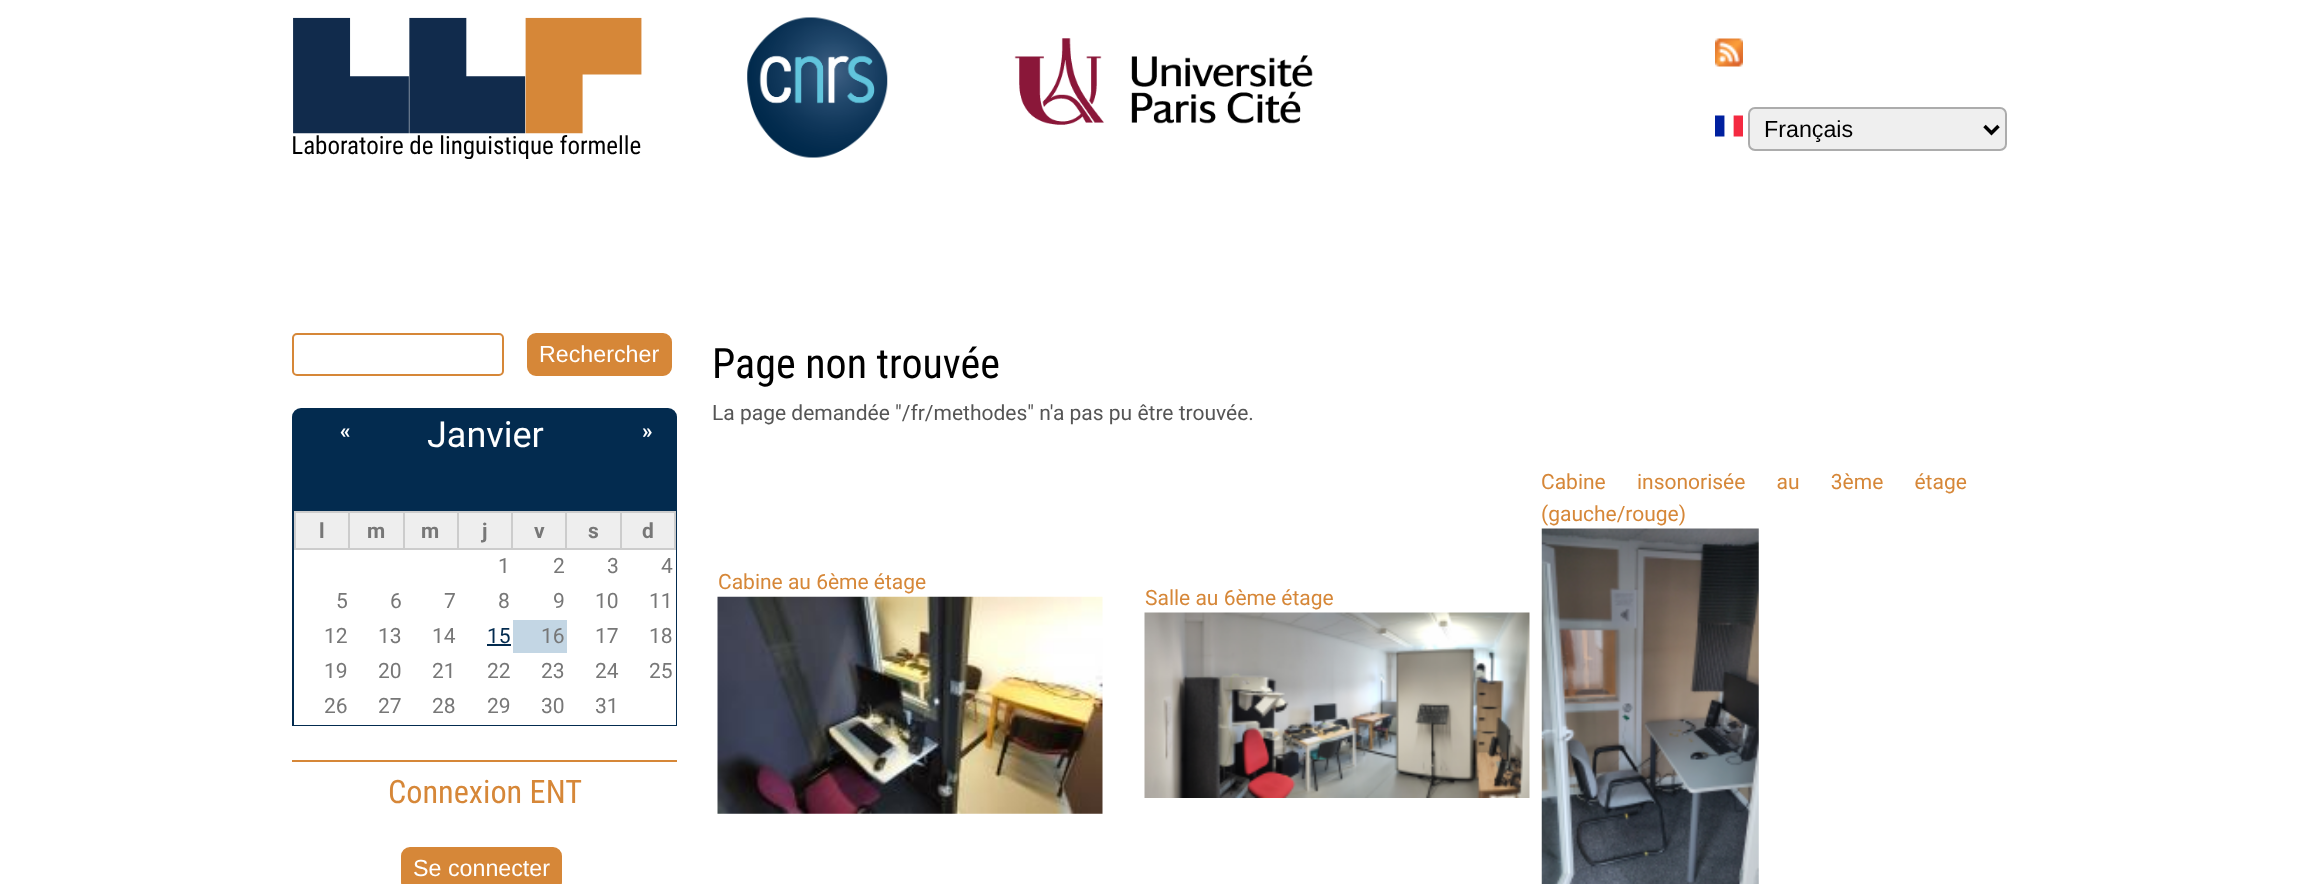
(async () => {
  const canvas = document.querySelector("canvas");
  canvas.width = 2298;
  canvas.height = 884;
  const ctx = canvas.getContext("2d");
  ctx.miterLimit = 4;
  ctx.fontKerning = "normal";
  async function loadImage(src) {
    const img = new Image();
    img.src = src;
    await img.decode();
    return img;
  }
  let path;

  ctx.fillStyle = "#ffffff";
  ctx.fillRect(0, 0, 2298, 884);
  ctx.drawImage(await loadImage("img/1.png"), 293, 17, 349, 142);
  ctx.drawImage(await loadImage("img/2.png"), 747, 17, 141, 141);
  ctx.drawImage(await loadImage("img/3.png"), 1014, 38, 299, 87);
  ctx.drawImage(await loadImage("img/4.png"), 1715, 38, 28, 29);
  ctx.drawImage(await loadImage("img/5.png"), 1715, 115, 28, 22);
  ctx.fillStyle = "#efefef";
  ctx.beginPath();
  ctx.roundRect(1749, 108, 257, 42, 6);
  ctx.fill();
  ctx.strokeStyle = "#acacac";
  ctx.lineWidth = 2;
  ctx.stroke();
  path = new Path2D("M1984.5 126L1991.5 133L1998.5 126");
  ctx.strokeStyle = "#000000";
  ctx.lineWidth = 3.5;
  ctx.stroke(path);
  ctx.beginPath();
  ctx.roundRect(293, 334, 210, 41, 4);
  ctx.strokeStyle = "#d68738";
  ctx.lineWidth = 2;
  ctx.stroke();
  ctx.fillStyle = "#d68738";
  ctx.beginPath();
  ctx.roundRect(528, 334, 143, 41, 8);
  ctx.fill();
  ctx.stroke();
  ctx.fillStyle = "#032b4f";
  ctx.beginPath();
  ctx.roundRect(292, 408, 385, 318, 9);
  ctx.fill();
  ctx.fillStyle = "#ffffff";
  ctx.fillRect(294, 550, 2, 173);
  ctx.strokeStyle = "#032b4f";
  ctx.strokeRect(293, 510, 383, 215);
  for (const [x, y, w, h, color] of [
    [296, 513, 52, 35, "#eeeeee"],
    [620, 511, 56, 2, "#cccccc"],
    [674, 511, 2, 39, "#cccccc"],
    [620, 548, 56, 2, "#cccccc"],
    [620, 511, 2, 39, "#cccccc"],
    [565, 511, 56, 2, "#cccccc"],
    [565, 548, 56, 2, "#cccccc"],
    [565, 511, 2, 39, "#cccccc"],
    [511, 511, 56, 2, "#cccccc"],
    [511, 548, 56, 2, "#cccccc"],
    [511, 511, 2, 39, "#cccccc"],
    [457, 511, 56, 2, "#cccccc"],
    [457, 548, 56, 2, "#cccccc"],
    [457, 511, 2, 39, "#cccccc"],
    [403, 511, 56, 2, "#cccccc"],
    [403, 548, 56, 2, "#cccccc"],
    [403, 511, 2, 39, "#cccccc"],
    [348, 511, 56, 2, "#cccccc"],
    [348, 548, 56, 2, "#cccccc"],
    [348, 511, 2, 39, "#cccccc"],
    [294, 511, 56, 2, "#cccccc"],
    [294, 548, 56, 2, "#cccccc"],
    [294, 511, 2, 39, "#cccccc"],
    [350, 513, 53, 35, "#eeeeee"],
    [405, 513, 52, 35, "#eeeeee"],
    [459, 513, 52, 35, "#eeeeee"],
    [513, 513, 52, 35, "#eeeeee"],
    [567, 513, 53, 35, "#eeeeee"],
    [622, 513, 52, 35, "#eeeeee"],
    [296, 550, 380, 103, "#ffffff"],
    [294, 653, 382, 2, "#ffffff"],
    [487, 644, 24, 2, "#032b4f"],
    [513, 620, 54, 33, "#c3d6e4"],
    [296, 655, 380, 68, "#ffffff"],
    [294, 723, 382, 2, "#ffffff"],
    [292, 760, 385, 2, "#d68738"],
  ]) {
    ctx.fillStyle = color;
    ctx.fillRect(x, y, w, h);
  }
  ctx.beginPath();
  ctx.roundRect(402, 848, 159, 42, 8);
  ctx.fill();
  ctx.strokeStyle = "#d68738";
  ctx.stroke();
  ctx.drawImage(await loadImage("img/6.png"), 1541, 528, 218, 356);
  ctx.drawImage(await loadImage("img/7.png"), 717, 596, 386, 218);
  ctx.drawImage(await loadImage("img/8.png"), 1144, 612, 386, 186);
  ctx.font = "23.25px Liberation Sans";
  ctx.fillStyle = "#000000";
  ctx.fillText("Français", 1764, 137);
  ctx.fillStyle = "#ffffff";
  ctx.fillText("Rechercher", 539, 362);
  ctx.font = "36px Roboto";
  ctx.fillText("Janvier", 427, 447);
  ctx.font = "bold 21px Roboto";
  ctx.fillText("«", 340, 438);
  ctx.fillText("»", 642, 438);
  ctx.fillStyle = "#777777";
  for (const [text, x, y] of [
    ["l", 319, 538],
    ["m", 367, 538],
    ["m", 421, 538],
    ["j", 482, 538],
    ["v", 534, 538],
    ["s", 588, 538],
    ["d", 642, 538],
  ]) {
    ctx.fillText(text, x, y);
  }
  ctx.font = "21px Roboto";
  for (const [text, x, y] of [
    ["1", 498, 573],
    ["2", 553, 573],
    ["3", 607, 573],
    ["4", 661, 573],
    ["5", 336, 608],
    ["6", 390, 608],
    ["7", 444, 608],
    ["8", 498, 608],
    ["9", 553, 608],
    ["10", 595, 608],
    ["11", 649, 608],
    ["12", 324, 643],
    ["13", 378, 643],
    ["14", 432, 643],
  ]) {
    ctx.fillText(text, x, y);
  }
  ctx.fillStyle = "#032b4f";
  ctx.fillText("15", 487, 643);
  ctx.fillStyle = "#777777";
  for (const [text, x, y] of [
    ["16", 541, 643],
    ["17", 595, 643],
    ["18", 649, 643],
    ["19", 324, 678],
    ["20", 378, 678],
    ["21", 432, 678],
    ["22", 487, 678],
    ["23", 541, 678],
    ["24", 595, 678],
    ["25", 649, 678],
    ["26", 324, 713],
    ["27", 378, 713],
    ["28", 432, 713],
    ["29", 487, 713],
    ["30", 541, 713],
    ["31", 595, 713],
  ]) {
    ctx.fillText(text, x, y);
  }
  ctx.font = "32.25px Roboto Condensed";
  ctx.fillStyle = "#d68738";
  ctx.fillText("Connexion ENT", 388, 803);
  ctx.font = "23.25px Liberation Sans";
  ctx.fillStyle = "#ffffff";
  ctx.fillText("Se connecter", 413, 876);
  ctx.font = "42px Roboto Condensed";
  ctx.fillStyle = "#000000";
  ctx.fillText("Page non trouvée", 712, 378);
  ctx.font = "21px Roboto";
  ctx.fillStyle = "#555555";
  ctx.fillText("La page demandée \"/fr/methodes\" n'a pas pu être trouvée.", 712, 420);
  ctx.wordSpacing = "26px";
  ctx.fillStyle = "#d68738";
  ctx.fillText("Cabine insonorisée au 3ème étage", 1541, 489);
  ctx.wordSpacing = "0px";
  for (const [text, x, y] of [
    ["(gauche/rouge)", 1541, 521],
    ["Cabine au 6ème étage", 718, 589],
    ["Salle au 6ème étage", 1145, 605],
  ]) {
    ctx.fillText(text, x, y);
  }
})();
